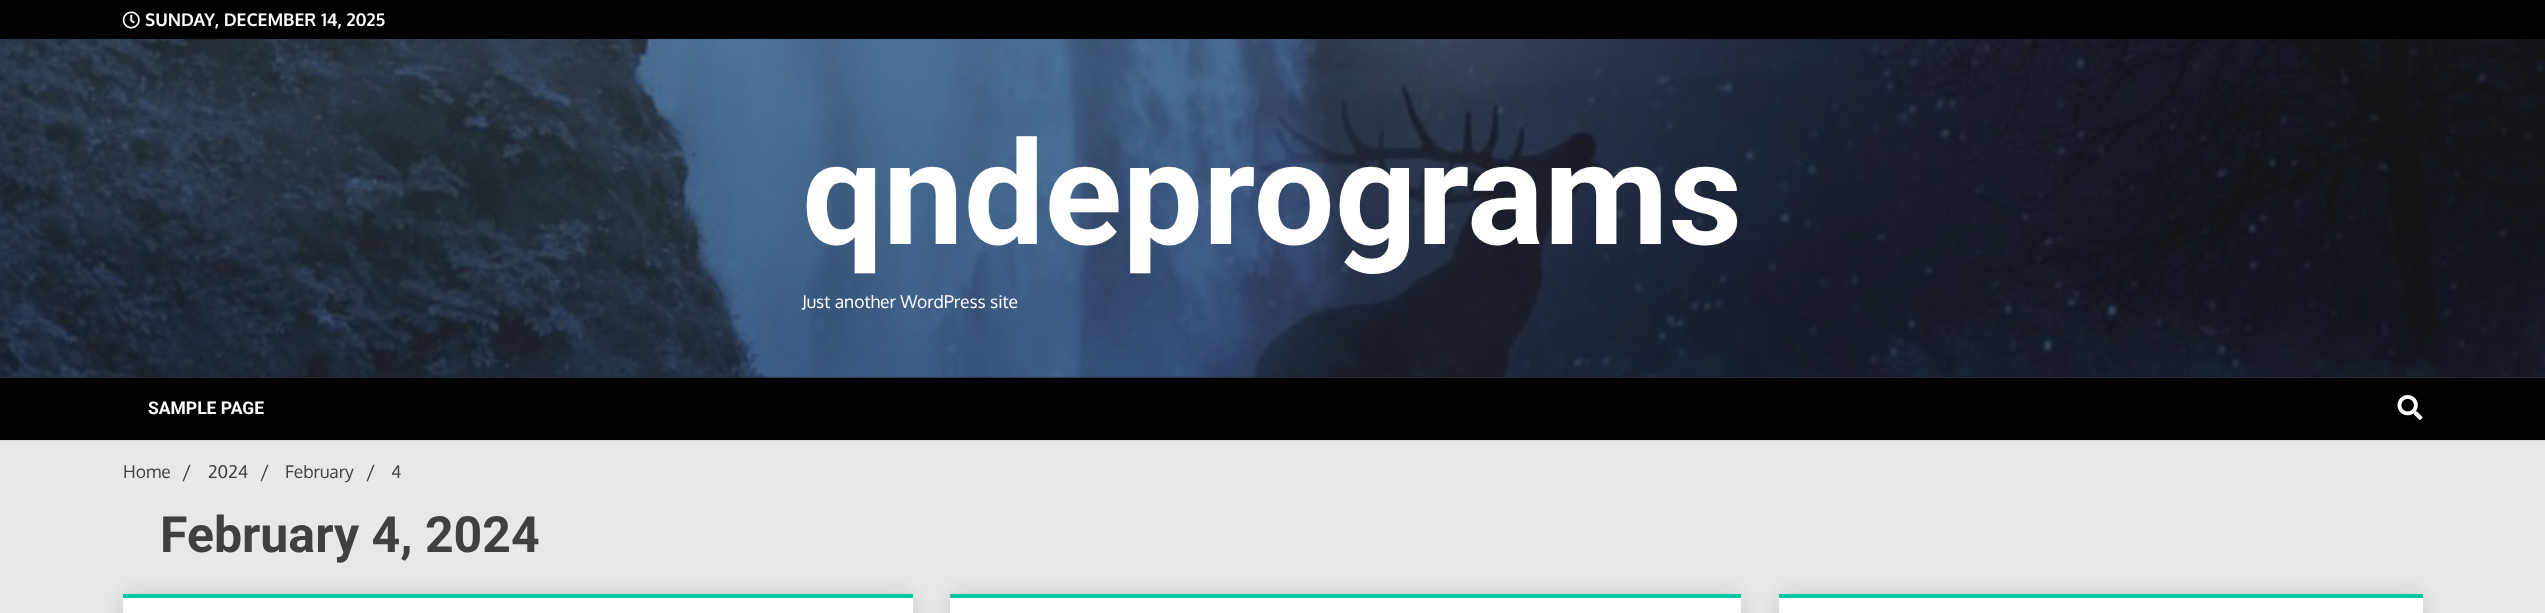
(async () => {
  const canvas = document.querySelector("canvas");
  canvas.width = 2545;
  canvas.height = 613;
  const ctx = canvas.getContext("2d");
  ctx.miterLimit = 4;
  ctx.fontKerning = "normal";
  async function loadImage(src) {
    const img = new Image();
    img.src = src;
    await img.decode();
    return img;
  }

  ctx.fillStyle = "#e8e8e8";
  ctx.fillRect(0, 0, 2545, 613);
  ctx.fillStyle = "#000000";
  ctx.fillRect(0, 0, 2545, 39);
  ctx.drawImage(await loadImage("img/1.png"), 122, 11, 18, 18);
  ctx.fillStyle = "#313131";
  ctx.fillRect(0, 39, 2545, 339);
  ctx.drawImage(await loadImage("img/2.png"), 0, 38, 2545, 340);
  ctx.strokeStyle = "rgba(0, 0, 0, 0.06)";
  ctx.strokeRect(-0.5, 376.5, 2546, 64);
  ctx.fillStyle = "#000000";
  ctx.fillRect(0, 378, 2545, 62);
  ctx.drawImage(await loadImage("img/3.png"), 2397, 395, 26, 25);
  ctx.fillStyle = "rgba(0, 0, 0, 0.13)";
  ctx.filter = "blur(9.5px)";
  ctx.beginPath();
  ctx.rect(123, 594, 790, 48);
  ctx.fill();
  ctx.filter = "none";
  ctx.fillStyle = "#ffffff";
  ctx.fillRect(123, 598, 790, 15);
  ctx.fillStyle = "#06c99f";
  ctx.fillRect(123, 594, 790, 4);
  ctx.fillStyle = "rgba(0, 0, 0, 0.13)";
  ctx.filter = "blur(9.5px)";
  ctx.beginPath();
  ctx.rect(950, 594, 791, 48);
  ctx.fill();
  ctx.filter = "none";
  ctx.fillStyle = "#ffffff";
  ctx.fillRect(950, 598, 791, 15);
  ctx.fillStyle = "#06c99f";
  ctx.fillRect(950, 594, 791, 4);
  ctx.fillStyle = "rgba(0, 0, 0, 0.13)";
  ctx.filter = "blur(9.5px)";
  ctx.beginPath();
  ctx.rect(1779, 594, 644, 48);
  ctx.fill();
  ctx.filter = "none";
  ctx.fillStyle = "#ffffff";
  ctx.fillRect(1779, 598, 644, 15);
  ctx.fillStyle = "#06c99f";
  ctx.fillRect(1779, 594, 644, 4);
  ctx.font = "bold 17.5px Oxygen";
  ctx.fillStyle = "#ffffff";
  ctx.fillText("SUNDAY, DECEMBER 14, 2025", 145, 26);
  ctx.font = "bold 143.75px Roboto";
  ctx.fillText("qndeprograms", 802, 244);
  ctx.font = "17.5px Oxygen";
  ctx.fillText("Just another WordPress site", 802, 308);
  ctx.font = "bold 17.5px Roboto";
  ctx.fillText("SAMPLE PAGE", 148, 414);
  ctx.font = "17.5px Oxygen";
  ctx.fillStyle = "#404040";
  ctx.fillText("Home", 123, 478);
  ctx.font = "20px Oxygen";
  ctx.fillText("/", 182, 479);
  ctx.font = "17.5px Oxygen";
  ctx.fillText("2024", 208, 478);
  ctx.font = "20px Oxygen";
  ctx.fillText("/", 260, 479);
  ctx.font = "17.5px Oxygen";
  ctx.fillText("February", 285, 478);
  ctx.font = "20px Oxygen";
  ctx.fillText("/", 366, 479);
  ctx.font = "17.5px Oxygen";
  ctx.fillText("4", 391, 478);
  ctx.font = "bold 50px Roboto";
  ctx.fillText("February 4, 2024", 160, 552);
})();
